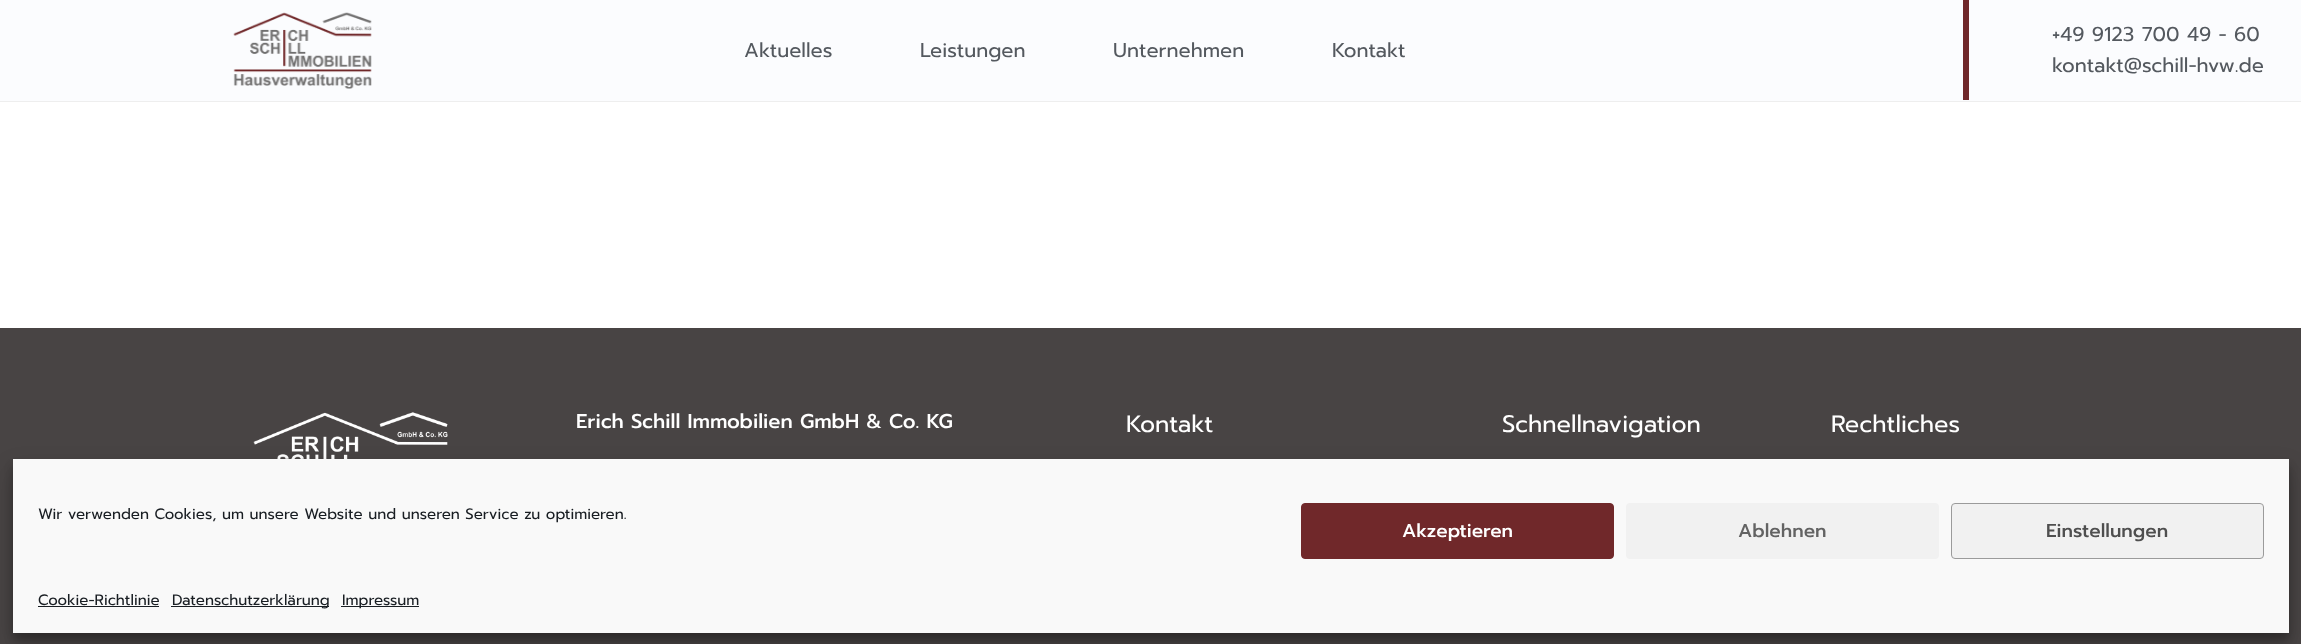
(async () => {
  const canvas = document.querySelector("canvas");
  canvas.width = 2301;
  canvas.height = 644;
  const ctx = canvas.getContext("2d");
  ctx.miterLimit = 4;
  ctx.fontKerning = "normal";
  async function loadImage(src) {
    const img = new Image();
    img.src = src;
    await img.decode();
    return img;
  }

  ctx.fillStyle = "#ffffff";
  ctx.fillRect(0, 0, 2301, 644);
  ctx.fillStyle = "#fbfcfe";
  ctx.fillRect(0, 0, 2301, 101);
  ctx.fillStyle = "#eeeeee";
  ctx.fillRect(0, 101, 2301, 1);
  ctx.drawImage(await loadImage("img/1.png"), 233, 12, 139, 77);
  ctx.fillStyle = "#70282a";
  ctx.fillRect(1963, 0, 6, 100);
  ctx.fillStyle = "#484444";
  ctx.fillRect(0, 328, 2301, 316);
  ctx.drawImage(await loadImage("img/2.png"), 253, 412, 195, 47);
  ctx.fillStyle = "rgba(0, 0, 0, 0.23)";
  ctx.filter = "blur(4px)";
  ctx.beginPath();
  ctx.rect(13, 466, 2276, 174);
  ctx.fill();
  ctx.filter = "none";
  ctx.fillStyle = "rgba(0, 0, 0, 0.19)";
  ctx.filter = "blur(12.5px)";
  ctx.beginPath();
  ctx.rect(13, 471, 2276, 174);
  ctx.fill();
  ctx.filter = "none";
  ctx.fillStyle = "#f9f9f9";
  ctx.fillRect(13, 459, 2276, 174);
  ctx.fillStyle = "#70282a";
  ctx.beginPath();
  ctx.roundRect(1301.5, 503.5, 312, 55, 3.5);
  ctx.fill();
  ctx.strokeStyle = "#70282a";
  ctx.stroke();
  ctx.fillStyle = "#f1f1f1";
  ctx.beginPath();
  ctx.roundRect(1626, 503, 313, 56, 4);
  ctx.fill();
  ctx.beginPath();
  ctx.roundRect(1951.5, 503.5, 312, 55, 3.5);
  ctx.fill();
  ctx.strokeStyle = "#9b9b9b";
  ctx.stroke();
  for (const [x, y, w, h, color] of [
    [38, 606, 121, 1, "#191e23"],
    [171, 606, 158, 1, "#191e23"],
    [341, 606, 78, 1, "#191e23"],
  ]) {
    ctx.fillStyle = color;
    ctx.fillRect(x, y, w, h);
  }
  ctx.font = "20px Prompt";
  ctx.fillStyle = "#54595f";
  for (const [text, x, y] of [
    ["Aktuelles", 744, 57],
    ["Leistungen", 920, 57],
    ["Unternehmen", 1113, 57],
    ["Kontakt", 1332, 57],
    ["+49 9123 700 49 - 60", 2052, 41],
    ["kontakt@schill-hvw.de", 2052, 72],
  ]) {
    ctx.fillText(text, x, y);
  }
  ctx.font = "500 20px Prompt";
  ctx.fillStyle = "#ffffff";
  ctx.fillText("Erich Schill Immobilien GmbH & Co. KG", 576, 428);
  ctx.font = "23.75px Prompt";
  for (const [text, x, y] of [
    ["Kontakt", 1126, 432],
    ["Schnellnavigation", 1502, 432],
    ["Rechtliches", 1831, 432],
  ]) {
    ctx.fillText(text, x, y);
  }
  ctx.font = "15px Prompt";
  ctx.fillStyle = "#191e23";
  ctx.fillText("Wir verwenden Cookies, um unsere Website und unseren Service zu optimieren.", 38, 519);
  ctx.font = "500 18.75px Prompt";
  ctx.fillStyle = "#ffffff";
  ctx.fillText("Akzeptieren", 1402, 537);
  ctx.fillStyle = "#636363";
  ctx.fillText("Ablehnen", 1738, 537);
  ctx.fillStyle = "#4f4f4f";
  ctx.fillText("Einstellungen", 2046, 537);
  ctx.font = "15px Prompt";
  ctx.fillStyle = "#191e23";
  for (const [text, x, y] of [
    ["Cookie-Richtlinie", 38, 605],
    ["Datenschutzerklärung", 172, 605],
    ["Impressum", 342, 605],
  ]) {
    ctx.fillText(text, x, y);
  }
})();
